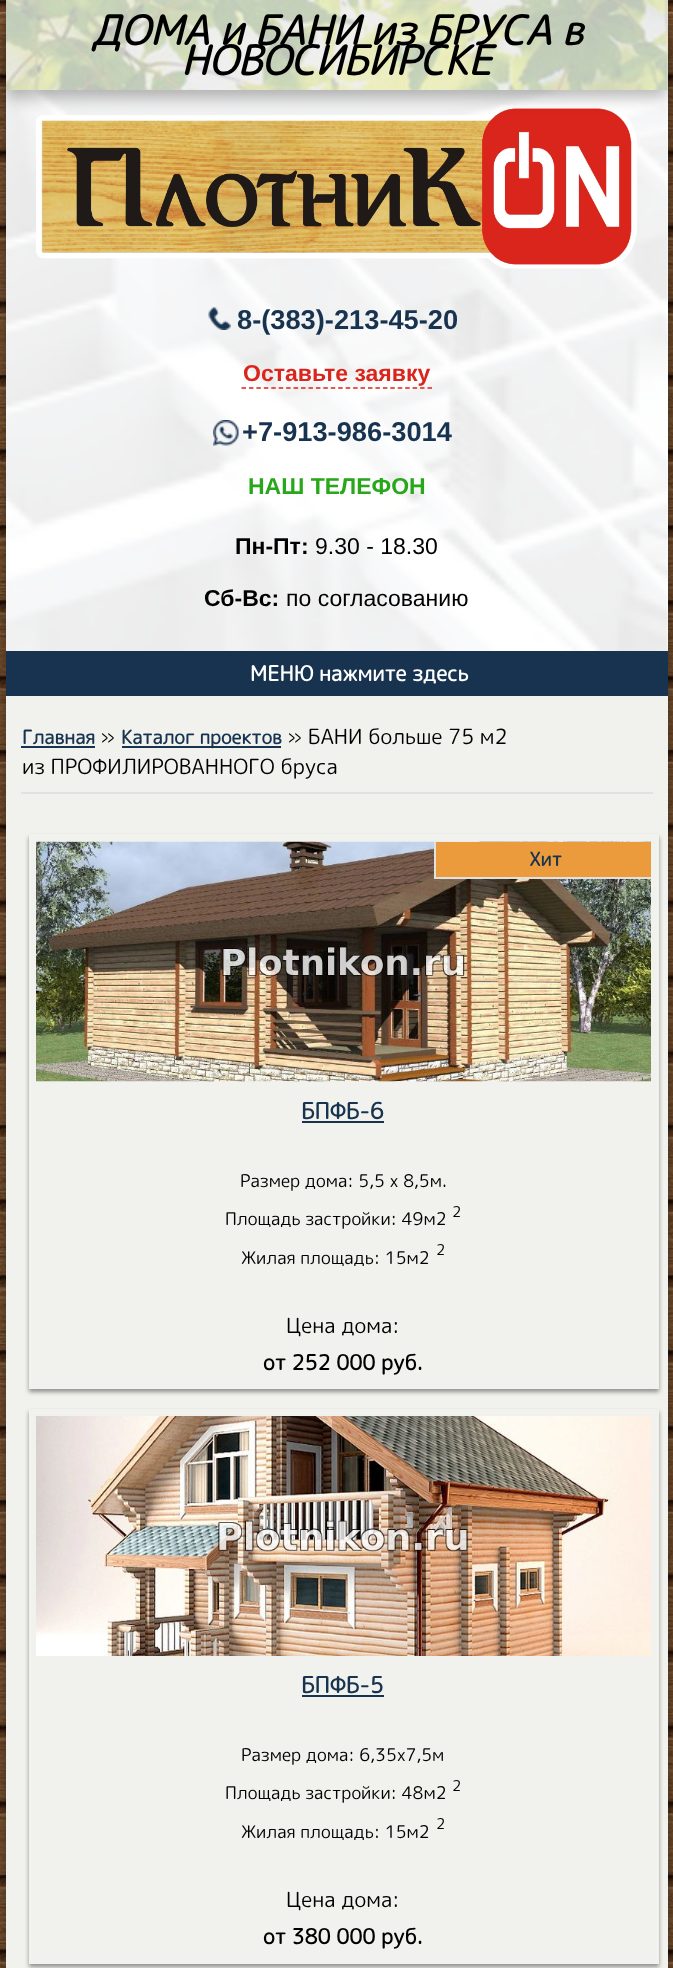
(async () => {
  const canvas = document.querySelector("canvas");
  canvas.width = 673;
  canvas.height = 1968;
  const ctx = canvas.getContext("2d");
  ctx.miterLimit = 4;
  ctx.fontKerning = "normal";
  async function loadImage(src) {
    const img = new Image();
    img.src = src;
    await img.decode();
    return img;
  }
  let path;

  ctx.fillStyle = "#ffffff";
  ctx.fillRect(0, 0, 673, 1968);
  ctx.drawImage(await loadImage("img/1.png"), 0, 0, 673, 1968);
  ctx.fillStyle = "#000000";
  ctx.filter = "blur(37.5px)";
  ctx.beginPath();
  ctx.rect(8, 0, 661, 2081);
  ctx.fill();
  ctx.filter = "none";
  ctx.fillStyle = "#ffffff";
  ctx.fillRect(6, 90, 662, 561);
  ctx.drawImage(await loadImage("img/3.png"), 6, 90, 662, 561);
  ctx.drawImage(await loadImage("img/4.png"), 36, 105, 601, 164);
  ctx.fillStyle = "rgba(0, 0, 0, 0.27)";
  ctx.filter = "blur(7.5px)";
  ctx.beginPath();
  ctx.rect(6, 8, 662, 90);
  ctx.fill();
  ctx.filter = "none";
  ctx.fillStyle = "#e1e1e1";
  ctx.fillRect(6, 0, 662, 90);
  ctx.drawImage(await loadImage("img/2.png"), 6, 0, 662, 90);
  ctx.drawImage(await loadImage("img/5.png"), 208, 307, 23, 23);
  path = new Path2D("M241.5 388H432");
  ctx.strokeStyle = "#da251c";
  ctx.lineWidth = 1.5;
  ctx.setLineDash([4.5, 2.94]);
  ctx.stroke(path);
  ctx.drawImage(await loadImage("img/6.png"), 213, 420, 26, 26);
  for (const [x, y, w, h, color] of [
    [6, 651, 662, 45, "#173350"],
    [6, 696, 662, 1272, "#f1f2ed"],
    [21, 746, 74, 2, "#173350"],
    [122, 746, 159, 2, "#173350"],
    [21, 792, 632, 2, "#e1e1e1"],
  ]) {
    ctx.fillStyle = color;
    ctx.fillRect(x, y, w, h);
  }
  ctx.save();
  path = new Path2D("M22 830H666V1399H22ZM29 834H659V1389H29Z");
  ctx.clip(path, "evenodd");
  ctx.fillStyle = "#909090";
  ctx.filter = "blur(2px)";
  ctx.beginPath();
  ctx.rect(29, 837, 630, 555);
  ctx.fill();
  ctx.filter = "none";
  ctx.restore();
  ctx.drawImage(await loadImage("img/7.png"), 36, 841, 615, 241);
  ctx.fillStyle = "#ec9b3c";
  ctx.fillRect(436, 842, 215, 35);
  ctx.save();
  ctx.beginPath();
  ctx.rect(36, 842, 615, 240);
  ctx.clip();
  ctx.strokeStyle = "#e1e1e1";
  ctx.lineWidth = 2;
  ctx.setLineDash([]);
  ctx.strokeRect(435, 835, 223, 43);
  ctx.restore();
  ctx.fillStyle = "#173350";
  ctx.fillRect(302, 1121, 82, 2);
  ctx.save();
  path = new Path2D("M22 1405H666V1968H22ZM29 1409H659V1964H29Z");
  ctx.clip(path, "evenodd");
  ctx.fillStyle = "#909090";
  ctx.filter = "blur(2px)";
  ctx.beginPath();
  ctx.rect(29, 1412, 630, 555);
  ctx.fill();
  ctx.filter = "none";
  ctx.restore();
  ctx.drawImage(await loadImage("img/8.png"), 36, 1416, 615, 240);
  ctx.fillRect(302, 1695, 82, 2);
  ctx.font = "italic bold 40.5px 'Rounded Mplus 1c'";
  ctx.fillStyle = "#000000";
  ctx.fillText("ДОМА и БАНИ из БРУСА в", 91, 45);
  ctx.fillText("НОВОСИБИРСКЕ", 181, 75);
  ctx.font = "bold 27.25px Liberation Sans";
  ctx.fillStyle = "#173350";
  ctx.fillText("8-(383)-213-45-20", 237, 329);
  ctx.font = "bold 23px Liberation Sans";
  ctx.fillStyle = "#da251c";
  ctx.fillText("Оставьте заявку", 243, 381);
  ctx.font = "bold 27.25px Liberation Sans";
  ctx.fillStyle = "#173350";
  ctx.fillText("+7-913-986-3014", 242, 441);
  ctx.font = "bold 23px Liberation Sans";
  ctx.fillStyle = "#29a71a";
  ctx.fillText("НАШ ТЕЛЕФОН", 248, 494);
  ctx.fillStyle = "#000000";
  ctx.fillText("Пн-Пт:", 235, 554);
  ctx.font = "23px Liberation Sans";
  ctx.fillText("9.30 - 18.30", 315, 554);
  ctx.font = "bold 23px Liberation Sans";
  ctx.fillText("Сб-Вс:", 204, 606);
  ctx.font = "23px Liberation Sans";
  ctx.fillText("по согласованию", 286, 606);
  ctx.font = "bold 21px 'Rounded Mplus 1c'";
  ctx.fillStyle = "#ffffff";
  ctx.fillText("МЕНЮ нажмите здесь", 250, 681);
  ctx.font = "bold 19px 'Rounded Mplus 1c'";
  ctx.fillStyle = "#173350";
  ctx.fillText("Главная", 22, 744);
  ctx.font = "21px 'Rounded Mplus 1c'";
  ctx.fillStyle = "#000000";
  ctx.fillText("»", 100, 744);
  ctx.font = "bold 19px 'Rounded Mplus 1c'";
  ctx.fillStyle = "#173350";
  ctx.fillText("Каталог проектов", 121, 744);
  ctx.font = "21px 'Rounded Mplus 1c'";
  ctx.fillStyle = "#000000";
  ctx.fillText("» БАНИ больше 75 м2", 287, 744);
  ctx.fillText("из ПРОФИЛИРОВАННОГО бруса", 22, 774);
  ctx.font = "bold 19px 'Rounded Mplus 1c'";
  ctx.fillStyle = "#173350";
  ctx.fillText("Хит", 529, 866);
  ctx.font = "bold 22.5px 'Rounded Mplus 1c'";
  ctx.fillText("БПФБ-6", 301, 1119);
  ctx.font = "17.5px 'Rounded Mplus 1c'";
  ctx.fillStyle = "#000000";
  ctx.fillText("Размер дома: 5,5 х 8,5м.", 240, 1187);
  ctx.fillText("Площадь застройки: 49м2", 225, 1225);
  ctx.font = "15px 'Rounded Mplus 1c'";
  ctx.fillText("2", 452, 1217);
  ctx.fillText("2", 436, 1255);
  ctx.font = "17.5px 'Rounded Mplus 1c'";
  ctx.fillText("Жилая площадь: 15м2", 241, 1264);
  ctx.font = "21px 'Rounded Mplus 1c'";
  ctx.fillText("Цена дома:", 286, 1333);
  ctx.font = "bold 21px 'Rounded Mplus 1c'";
  ctx.fillText("от 252 000 руб.", 263, 1370);
  ctx.font = "bold 22.5px 'Rounded Mplus 1c'";
  ctx.fillStyle = "#173350";
  ctx.fillText("БПФБ-5", 301, 1693);
  ctx.font = "17.5px 'Rounded Mplus 1c'";
  ctx.fillStyle = "#000000";
  ctx.fillText("Размер дома: 6,35х7,5м", 241, 1761);
  ctx.fillText("Площадь застройки: 48м2", 225, 1799);
  ctx.font = "15px 'Rounded Mplus 1c'";
  ctx.fillText("2", 452, 1791);
  ctx.fillText("2", 436, 1829);
  ctx.font = "17.5px 'Rounded Mplus 1c'";
  ctx.fillText("Жилая площадь: 15м2", 241, 1838);
  ctx.font = "21px 'Rounded Mplus 1c'";
  ctx.fillText("Цена дома:", 286, 1907);
  ctx.font = "bold 21px 'Rounded Mplus 1c'";
  ctx.fillText("от 380 000 руб.", 263, 1944);
})();
